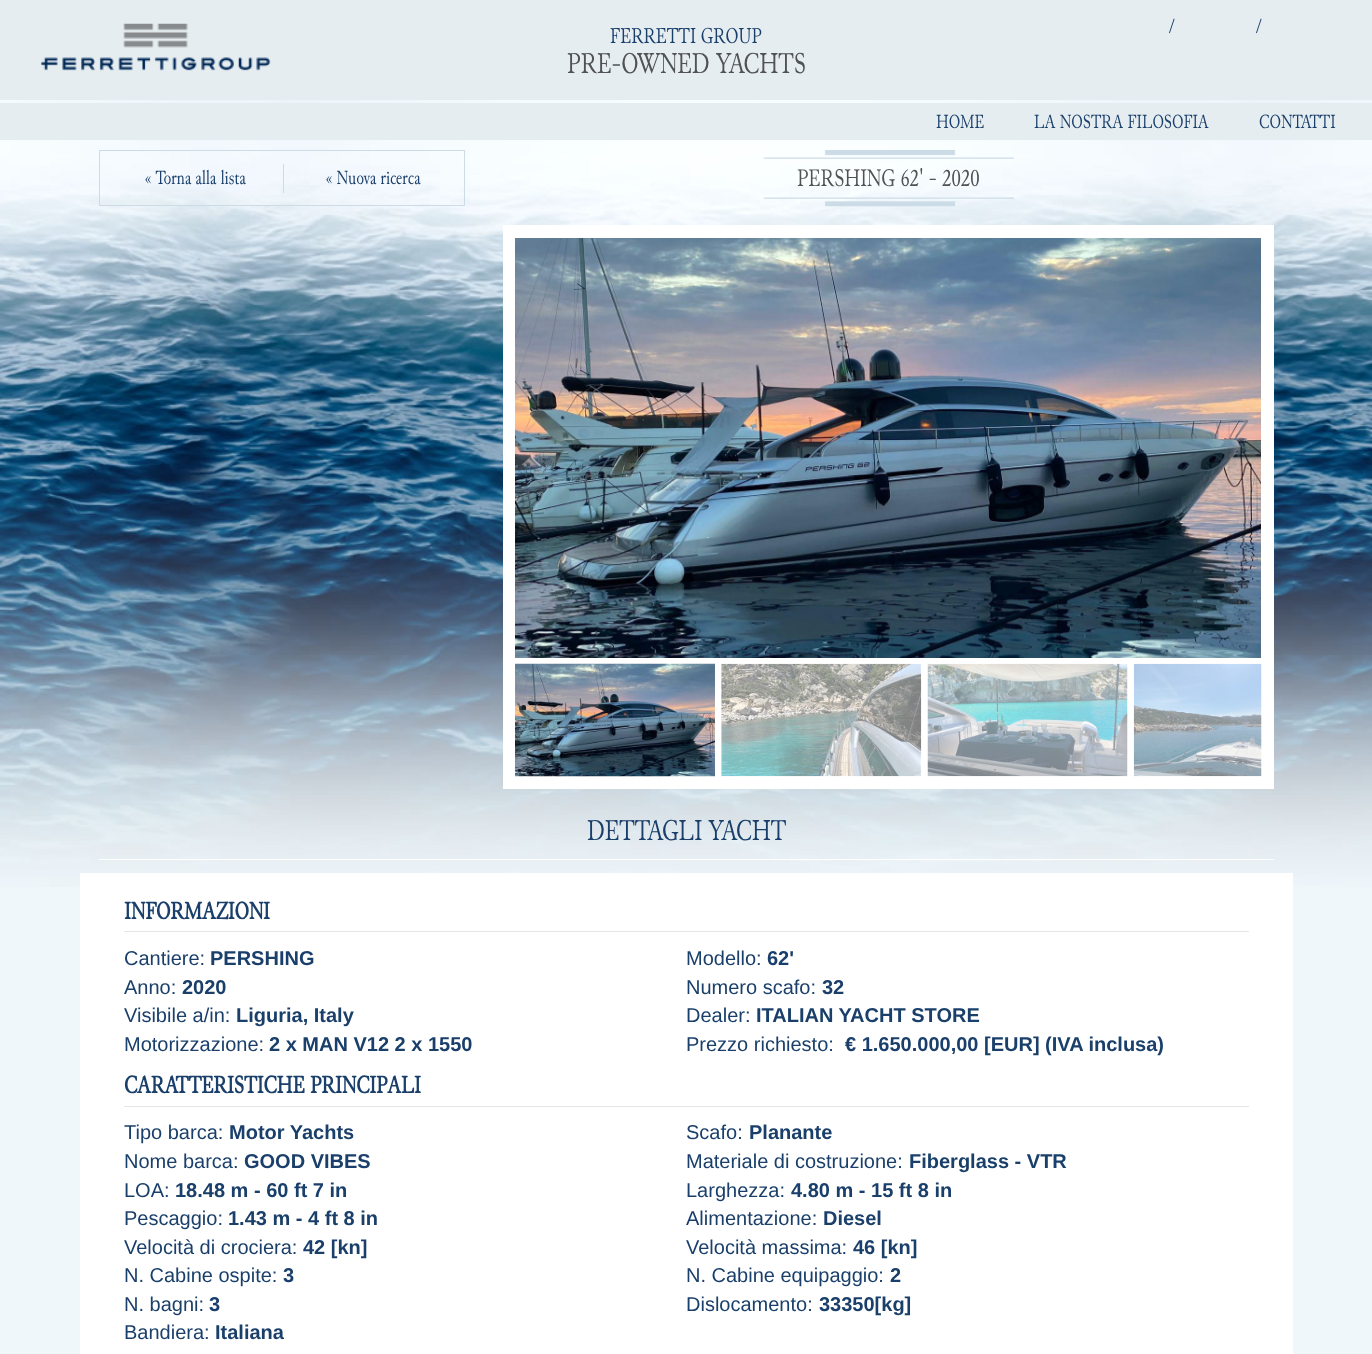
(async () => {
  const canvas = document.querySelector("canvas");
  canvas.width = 1372;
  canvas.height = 1354;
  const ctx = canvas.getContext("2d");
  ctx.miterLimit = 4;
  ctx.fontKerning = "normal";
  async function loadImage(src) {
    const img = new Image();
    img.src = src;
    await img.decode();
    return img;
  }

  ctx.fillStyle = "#eff7fa";
  ctx.fillRect(0, 0, 1372, 1354);
  ctx.drawImage(await loadImage("img/1.png"), 0, 100, 1372, 787);
  ctx.fillStyle = "#e6edf1";
  ctx.fillRect(0, 0, 1372, 100);
  ctx.drawImage(await loadImage("img/2.png"), 41, 23, 230, 48);
  ctx.fillRect(0, 103, 1372, 37);
  ctx.strokeStyle = "#ccdce7";
  ctx.strokeRect(99.5, 150.5, 365, 55);
  ctx.fillStyle = "#ccdce7";
  ctx.fillRect(283, 164, 1, 29);
  ctx.drawImage(await loadImage("img/3.png"), 763, 150, 251, 9);
  ctx.drawImage(await loadImage("img/4.png"), 763, 197, 251, 10);
  ctx.fillStyle = "#ffffff";
  ctx.fillRect(503, 225, 771, 564);
  ctx.drawImage(await loadImage("img/5.png"), 515, 238, 746, 420);
  ctx.drawImage(await loadImage("img/6.png"), 515, 663, 200, 114);
  ctx.drawImage(await loadImage("img/7.png"), 721, 663, 201, 114);
  ctx.drawImage(await loadImage("img/8.png"), 927, 663, 201, 114);
  ctx.drawImage(await loadImage("img/9.png"), 1133, 663, 129, 114);
  for (const [x, y, w, h, color] of [
    [99, 859, 1175, 1, "#ffffff"],
    [80, 873, 1213, 481, "#ffffff"],
    [124, 931, 1125, 1, "#e6e6e6"],
    [124, 1106, 1125, 1, "#e6e6e6"],
  ]) {
    ctx.fillStyle = color;
    ctx.fillRect(x, y, w, h);
  }
  ctx.font = "22.5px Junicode";
  ctx.fillStyle = "#193f6a";
  ctx.fillText("FERRETTI GROUP", 610, 43);
  ctx.font = "30px Junicode";
  ctx.fillStyle = "#515254";
  ctx.fillText("PRE-OWNED YACHTS", 567, 73);
  ctx.font = "20px Junicode";
  ctx.fillStyle = "#193f6a";
  for (const [text, x, y] of [
    ["/", 1169, 33],
    ["/", 1256, 33],
    ["HOME", 936, 128],
    ["LA NOSTRA FILOSOFIA", 1034, 128],
    ["CONTATTI", 1259, 128],
    ["« Torna alla lista", 145, 184],
    ["« Nuova ricerca", 326, 184],
  ]) {
    ctx.fillText(text, x, y);
  }
  ctx.font = "25px Junicode";
  ctx.fillStyle = "#515254";
  ctx.fillText("PERSHING 62' - 2020", 797, 186);
  ctx.font = "30px Junicode";
  ctx.fillStyle = "#193f6a";
  ctx.fillText("DETTAGLI YACHT", 587, 840);
  ctx.font = "bold 25px Junicode";
  ctx.fillText("INFORMAZIONI", 124, 919);
  ctx.font = "20px Liberation Sans";
  ctx.fillText("Cantiere:", 124, 965);
  ctx.font = "bold 20px Liberation Sans";
  ctx.fillText("PERSHING", 210, 965);
  ctx.font = "20px Liberation Sans";
  ctx.fillText("Modello:", 686, 965);
  ctx.font = "bold 20px Liberation Sans";
  ctx.fillText("62'", 767, 965);
  ctx.font = "20px Liberation Sans";
  ctx.fillText("Anno:", 124, 994);
  ctx.font = "bold 20px Liberation Sans";
  ctx.fillText("2020", 182, 994);
  ctx.font = "20px Liberation Sans";
  ctx.fillText("Numero scafo:", 686, 994);
  ctx.font = "bold 20px Liberation Sans";
  ctx.fillText("32", 822, 994);
  ctx.font = "20px Liberation Sans";
  ctx.fillText("Visibile a/in:", 124, 1022);
  ctx.font = "bold 20px Liberation Sans";
  ctx.fillText("Liguria, Italy", 236, 1022);
  ctx.font = "20px Liberation Sans";
  ctx.fillText("Dealer:", 686, 1022);
  ctx.font = "bold 20px Liberation Sans";
  ctx.fillText("ITALIAN YACHT STORE", 756, 1022);
  ctx.font = "20px Liberation Sans";
  ctx.fillText("Motorizzazione:", 124, 1051);
  ctx.font = "bold 20px Liberation Sans";
  ctx.fillText("2 x MAN V12 2 x 1550", 269, 1051);
  ctx.font = "20px Liberation Sans";
  ctx.fillText("Prezzo richiesto:", 686, 1051);
  ctx.font = "bold 20px Liberation Sans";
  ctx.fillText("€ 1.650.000,00 [EUR] (IVA inclusa)", 845, 1051);
  ctx.font = "bold 25px Junicode";
  ctx.fillText("CARATTERISTICHE PRINCIPALI", 124, 1093);
  ctx.font = "20px Liberation Sans";
  ctx.fillText("Tipo barca:", 124, 1139);
  ctx.font = "bold 20px Liberation Sans";
  ctx.fillText("Motor Yachts", 229, 1139);
  ctx.font = "20px Liberation Sans";
  ctx.fillText("Scafo:", 686, 1139);
  ctx.font = "bold 20px Liberation Sans";
  ctx.fillText("Planante", 749, 1139);
  ctx.font = "20px Liberation Sans";
  ctx.fillText("Nome barca:", 124, 1168);
  ctx.font = "bold 20px Liberation Sans";
  ctx.fillText("GOOD VIBES", 244, 1168);
  ctx.font = "20px Liberation Sans";
  ctx.fillText("Materiale di costruzione:", 686, 1168);
  ctx.font = "bold 20px Liberation Sans";
  ctx.fillText("Fiberglass - VTR", 909, 1168);
  ctx.font = "20px Liberation Sans";
  ctx.fillText("LOA:", 124, 1197);
  ctx.font = "bold 20px Liberation Sans";
  ctx.fillText("18.48 m - 60 ft 7 in", 175, 1197);
  ctx.font = "20px Liberation Sans";
  ctx.fillText("Larghezza:", 686, 1197);
  ctx.font = "bold 20px Liberation Sans";
  ctx.fillText("4.80 m - 15 ft 8 in", 791, 1197);
  ctx.font = "20px Liberation Sans";
  ctx.fillText("Pescaggio:", 124, 1225);
  ctx.font = "bold 20px Liberation Sans";
  ctx.fillText("1.43 m - 4 ft 8 in", 228, 1225);
  ctx.font = "20px Liberation Sans";
  ctx.fillText("Alimentazione:", 686, 1225);
  ctx.font = "bold 20px Liberation Sans";
  ctx.fillText("Diesel", 823, 1225);
  ctx.font = "20px Liberation Sans";
  ctx.fillText("Velocità di crociera:", 124, 1254);
  ctx.font = "bold 20px Liberation Sans";
  ctx.fillText("42 [kn]", 303, 1254);
  ctx.font = "20px Liberation Sans";
  ctx.fillText("Velocità massima:", 686, 1254);
  ctx.font = "bold 20px Liberation Sans";
  ctx.fillText("46 [kn]", 853, 1254);
  ctx.font = "20px Liberation Sans";
  ctx.fillText("N. Cabine ospite:", 124, 1282);
  ctx.font = "bold 20px Liberation Sans";
  ctx.fillText("3", 283, 1282);
  ctx.font = "20px Liberation Sans";
  ctx.fillText("N. Cabine equipaggio:", 686, 1282);
  ctx.font = "bold 20px Liberation Sans";
  ctx.fillText("2", 890, 1282);
  ctx.font = "20px Liberation Sans";
  ctx.fillText("N. bagni:", 124, 1311);
  ctx.font = "bold 20px Liberation Sans";
  ctx.fillText("3", 209, 1311);
  ctx.font = "20px Liberation Sans";
  ctx.fillText("Dislocamento:", 686, 1311);
  ctx.font = "bold 20px Liberation Sans";
  ctx.fillText("33350[kg]", 819, 1311);
  ctx.font = "20px Liberation Sans";
  ctx.fillText("Bandiera:", 124, 1339);
  ctx.font = "bold 20px Liberation Sans";
  ctx.fillText("Italiana", 215, 1339);
})();
